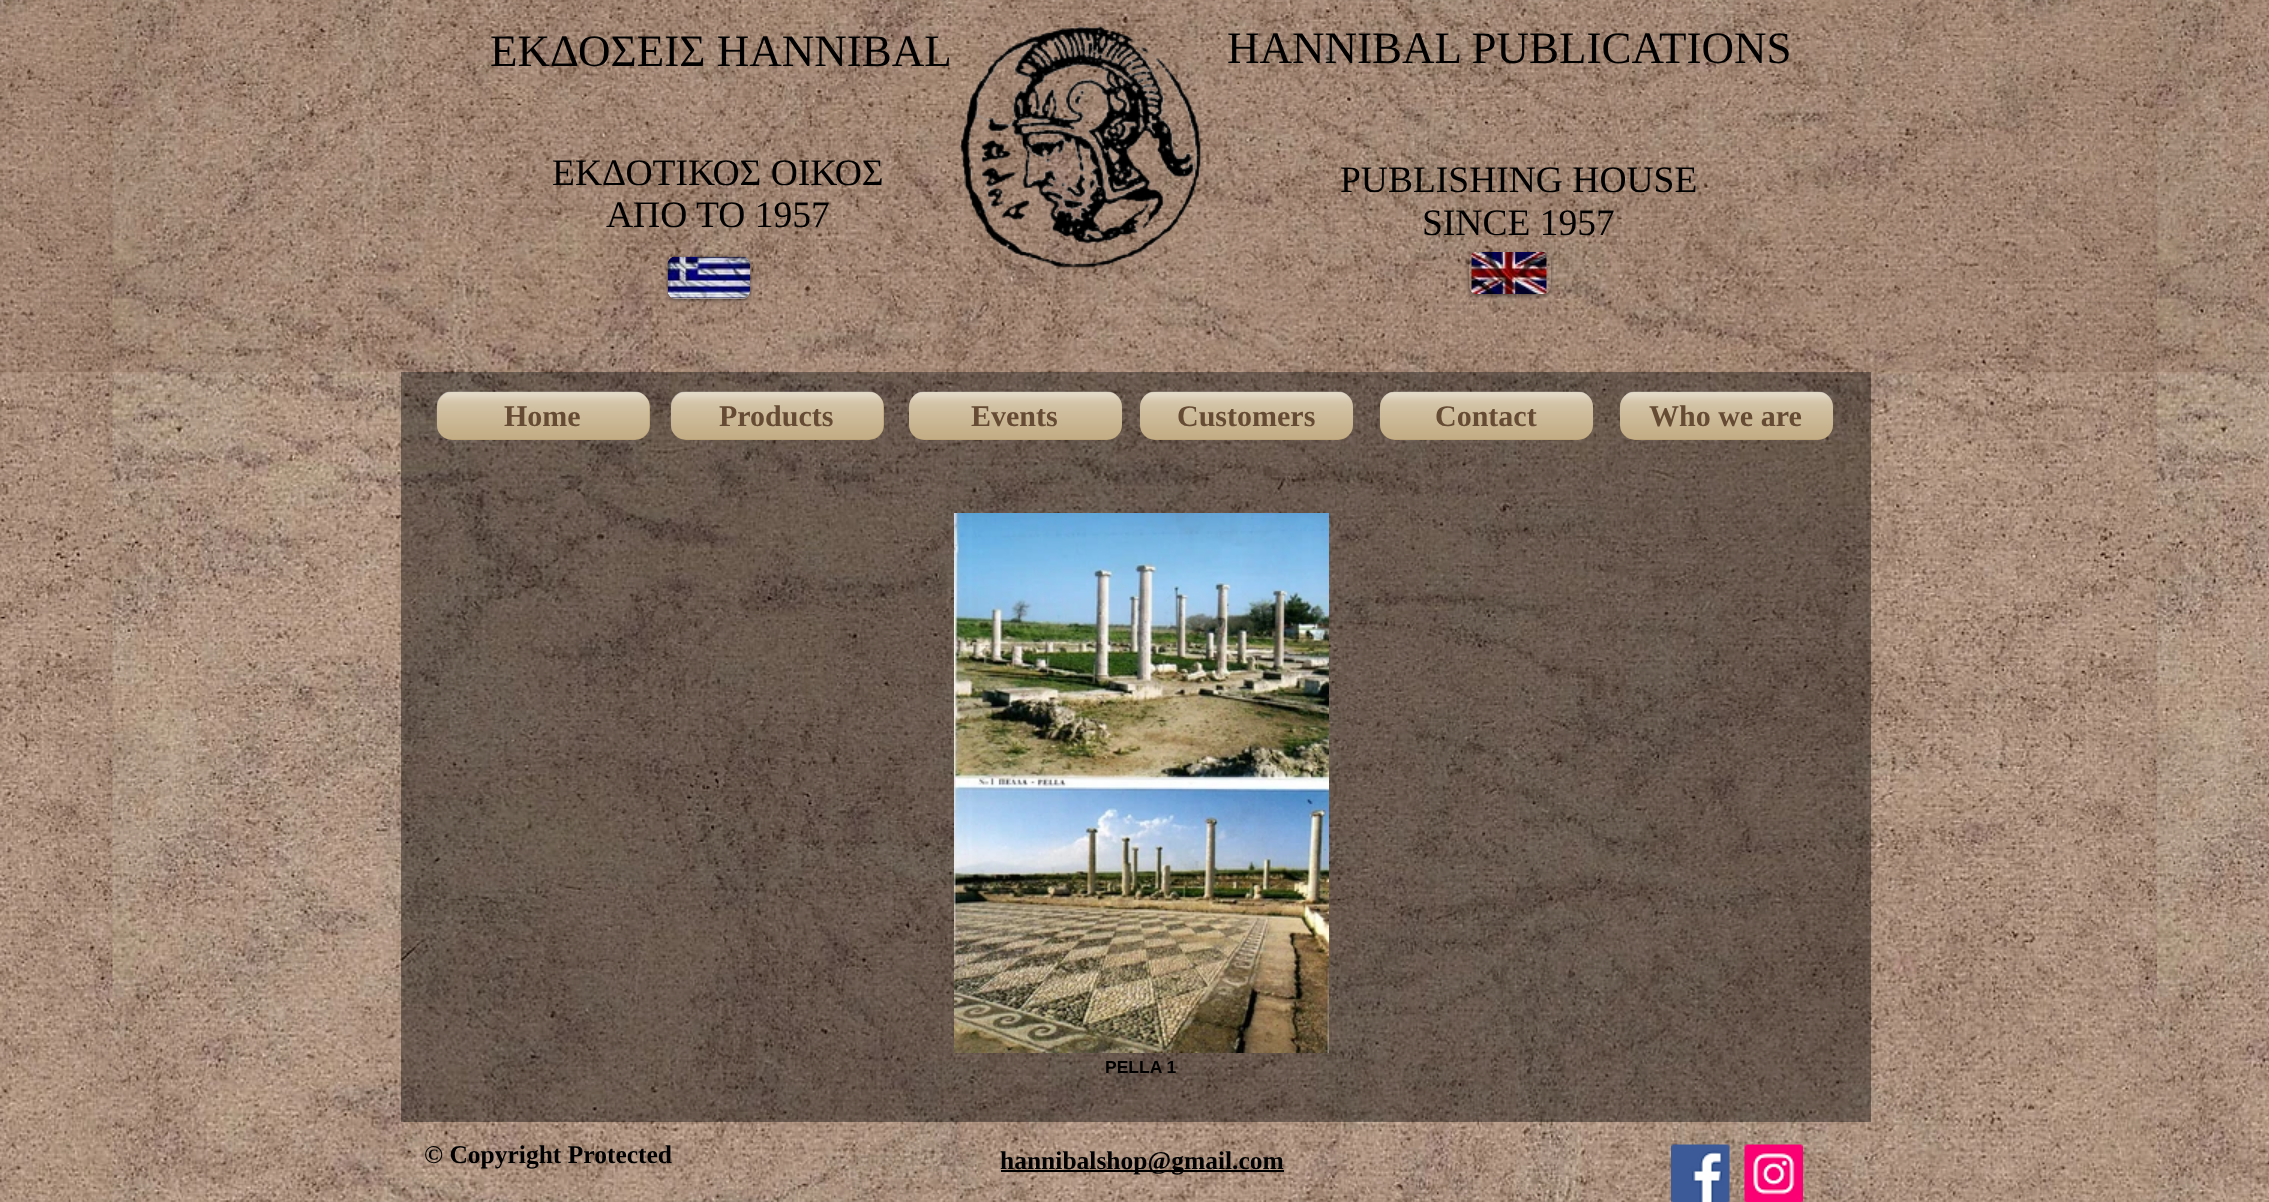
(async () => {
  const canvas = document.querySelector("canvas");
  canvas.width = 2269;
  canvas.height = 1202;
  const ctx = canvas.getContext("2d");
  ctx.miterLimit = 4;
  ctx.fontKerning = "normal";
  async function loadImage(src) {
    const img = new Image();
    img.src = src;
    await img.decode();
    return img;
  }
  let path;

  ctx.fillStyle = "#ffffff";
  ctx.fillRect(0, 0, 2269, 1202);
  ctx.drawImage(await loadImage("img/1.png"), 0, 0, 2269, 1202);
  ctx.fillStyle = "rgba(68, 28, 8, 0.1)";
  ctx.fillRect(0, 0, 2269, 372);
  ctx.fillStyle = "rgba(0, 0, 0, 0.5)";
  ctx.filter = "blur(2px)";
  ctx.beginPath();
  ctx.roundRect(668, 258, 82, 42, 8);
  ctx.fill();
  ctx.filter = "none";
  ctx.fillStyle = "rgba(255, 255, 255, 0.5)";
  ctx.beginPath();
  ctx.roundRect(668, 257, 82, 42, 8);
  ctx.fill();
  ctx.drawImage(await loadImage("img/3.png"), 667, 256, 83, 43);
  ctx.save();
  path = new Path2D("M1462 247H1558V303H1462ZM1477 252H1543C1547.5 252 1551 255.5 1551 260V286C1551 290.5 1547.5 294 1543 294H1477C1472.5 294 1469 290.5 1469 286V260C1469 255.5 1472.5 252 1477 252Z");
  ctx.clip(path, "evenodd");
  ctx.fillStyle = "rgba(0, 0, 0, 0.5)";
  ctx.filter = "blur(2px)";
  ctx.beginPath();
  ctx.roundRect(1469, 254, 82, 42, 8);
  ctx.fill();
  ctx.filter = "none";
  ctx.restore();
  ctx.drawImage(await loadImage("img/4.png"), 1471, 252, 76, 42);
  ctx.fillStyle = "rgba(0, 0, 0, 0.4)";
  ctx.fillRect(401, 372, 1470, 750);
  ctx.fillStyle = "#bda579";
  ctx.beginPath();
  ctx.roundRect(437, 392, 213, 48, 15);
  ctx.fill();
  ctx.drawImage(await loadImage("img/5.png"), 436, 391, 214, 48);
  ctx.beginPath();
  ctx.roundRect(671, 392, 213, 48, 15);
  ctx.fill();
  ctx.drawImage(await loadImage("img/6.png"), 670, 391, 214, 48);
  ctx.beginPath();
  ctx.roundRect(909, 392, 213, 48, 15);
  ctx.fill();
  ctx.drawImage(await loadImage("img/7.png"), 909, 391, 213, 48);
  ctx.beginPath();
  ctx.roundRect(1140, 392, 213, 48, 15);
  ctx.fill();
  ctx.drawImage(await loadImage("img/8.png"), 1140, 391, 213, 48);
  ctx.beginPath();
  ctx.roundRect(1380, 392, 213, 48, 15);
  ctx.fill();
  ctx.drawImage(await loadImage("img/9.png"), 1380, 391, 213, 48);
  ctx.beginPath();
  ctx.roundRect(1620, 392, 213, 48, 15);
  ctx.fill();
  ctx.drawImage(await loadImage("img/10.png"), 1620, 391, 213, 48);
  ctx.drawImage(await loadImage("img/11.png"), 954, 513, 375, 540);
  ctx.fillStyle = "#000000";
  ctx.fillRect(1001, 1170, 283, 2);
  ctx.drawImage(await loadImage("img/12.png"), 1671, 1144, 59, 58);
  ctx.drawImage(await loadImage("img/13.png"), 1744, 1144, 59, 58);
  ctx.font = "45px Liberation Serif";
  ctx.fillText("ΕΚΔΟΣΕΙΣ HANNIBAL", 490, 66);
  ctx.drawImage(await loadImage("img/2.png"), 947, 23, 272, 245);
  ctx.fillText("HANNIBAL PUBLICATIONS", 1227, 63);
  ctx.font = "37.5px Liberation Serif";
  for (const [text, x, y] of [
    ["ΕΚΔΟΤΙΚΟΣ ΟΙΚΟΣ", 552, 185],
    ["ΑΠΟ ΤΟ 1957", 606, 227],
    ["PUBLISHING HOUSE", 1340, 192],
    ["SINCE 1957", 1422, 235],
  ]) {
    ctx.fillText(text, x, y);
  }
  ctx.font = "bold 30px Liberation Serif";
  ctx.fillStyle = "#664b34";
  for (const [text, x, y] of [
    ["Home", 504, 426],
    ["Products", 719, 426],
    ["Events", 971, 426],
    ["Customers", 1177, 426],
    ["Contact", 1435, 426],
    ["Who we are", 1649, 426],
  ]) {
    ctx.fillText(text, x, y);
  }
  ctx.font = "bold 17.5px Liberation Sans";
  ctx.fillStyle = "#000000";
  ctx.fillText("PELLA 1", 1105, 1073);
  ctx.font = "bold 25.5px Liberation Serif";
  ctx.fillText("© Copyright Protected", 424, 1163);
  ctx.fillText("hannibalshop@gmail.com", 1000, 1169);
})();
